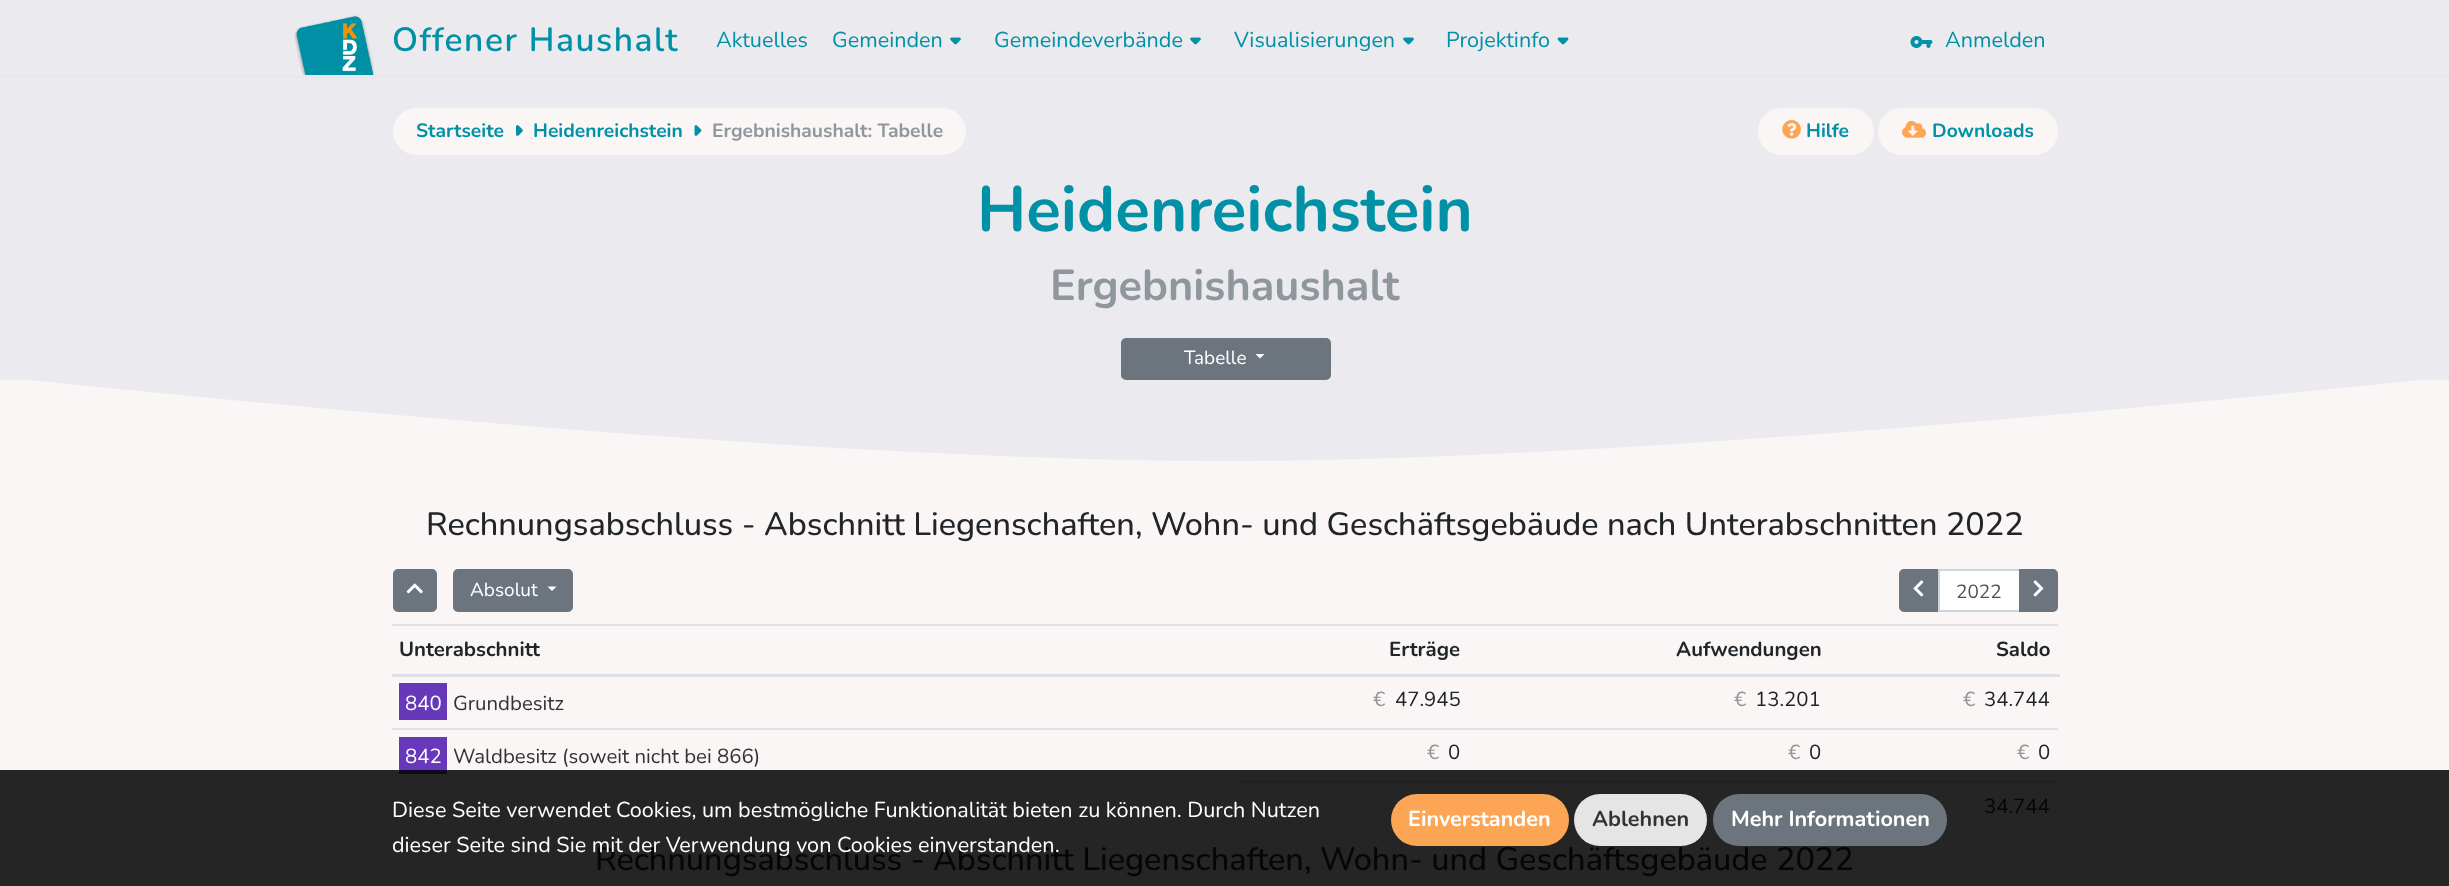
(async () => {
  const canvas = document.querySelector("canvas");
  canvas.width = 2449;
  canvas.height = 886;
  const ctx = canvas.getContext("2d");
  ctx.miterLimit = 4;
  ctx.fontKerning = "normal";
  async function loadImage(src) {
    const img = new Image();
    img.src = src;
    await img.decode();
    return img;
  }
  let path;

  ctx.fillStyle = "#faf6f6";
  ctx.fillRect(0, 0, 2449, 886);
  for (const [x, y, w, h, color] of [
    [0, 770, 2449, 116, "#262525"],
    [0, 0, 2449, 75, "#ebeaef"],
    [0, 75, 2449, 3, "#e8e6ee"],
  ]) {
    ctx.fillStyle = color;
    ctx.fillRect(x, y, w, h);
  }
  ctx.drawImage(await loadImage("img/1.png"), 294, 15, 80, 60);
  ctx.drawImage(await loadImage("img/2.png"), 950, 37, 11, 8);
  ctx.drawImage(await loadImage("img/2.png"), 1190, 37, 11, 8);
  ctx.drawImage(await loadImage("img/2.png"), 1403, 37, 11, 8);
  ctx.drawImage(await loadImage("img/3.png"), 1557, 37, 12, 8);
  ctx.drawImage(await loadImage("img/4.png"), 1910, 36, 23, 12);
  ctx.fillStyle = "#ebeaef";
  ctx.fillRect(0, 78, 2449, 302);
  ctx.fillStyle = "#faf6f6";
  ctx.beginPath();
  ctx.roundRect(393, 108, 573, 47, 23.5);
  ctx.fill();
  ctx.drawImage(await loadImage("img/5.png"), 516, 125, 7, 11);
  ctx.drawImage(await loadImage("img/6.png"), 694, 125, 8, 11);
  ctx.beginPath();
  ctx.roundRect(1758, 108, 116, 47, 23.5);
  ctx.fill();
  ctx.drawImage(await loadImage("img/7.png"), 1782, 120, 19, 19);
  ctx.beginPath();
  ctx.roundRect(1878, 108, 180, 47, 23.5);
  ctx.fill();
  ctx.drawImage(await loadImage("img/8.png"), 1902, 120, 24, 18);
  ctx.save();
  ctx.beginPath();
  ctx.rect(0, 375, 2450, 87);
  ctx.clip();
  ctx.fillStyle = "#ebeaef";
  path = new Path2D("M0-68H2449V377C1905 433 1497 461 1225 461C952 461 544 433 0 377Z");
  ctx.fill(path, "evenodd");
  ctx.restore();
  ctx.fillStyle = "#6c757d";
  ctx.beginPath();
  ctx.roundRect(1122, 339, 208, 40, 4);
  ctx.fill();
  ctx.strokeStyle = "#6c757d";
  ctx.lineWidth = 2;
  ctx.stroke();
  ctx.fillStyle = "#ffffff";
  path = new Path2D("M1255.5 354H1264.5L1260 358.5Z");
  ctx.fill(path);
  ctx.fillStyle = "#6c757d";
  ctx.beginPath();
  ctx.roundRect(394, 570, 42, 41, 4);
  ctx.fill();
  ctx.stroke();
  ctx.drawImage(await loadImage("img/9.png"), 406, 583, 17, 11);
  ctx.beginPath();
  ctx.roundRect(454, 570, 118, 41, 4);
  ctx.fill();
  ctx.stroke();
  ctx.fillStyle = "#ffffff";
  path = new Path2D("M547.5 586.5H556.5L552 591Z");
  ctx.fill(path);
  ctx.fillStyle = "#6c757d";
  ctx.beginPath();
  ctx.roundRect(1900, 570, 37, 41, [4, 0, 0, 4]);
  ctx.fill();
  ctx.stroke();
  ctx.drawImage(await loadImage("img/10.png"), 1913, 580, 11, 17);
  ctx.fillStyle = "#ffffff";
  ctx.beginPath();
  ctx.rect(1939, 570, 81, 41);
  ctx.fill();
  ctx.strokeStyle = "#ced4da";
  ctx.stroke();
  ctx.fillStyle = "#6c757d";
  ctx.beginPath();
  ctx.roundRect(2020, 570, 37, 41, [0, 4, 4, 0]);
  ctx.fill();
  ctx.strokeStyle = "#6c757d";
  ctx.stroke();
  ctx.drawImage(await loadImage("img/11.png"), 2033, 580, 11, 17);
  for (const [x, y, w, h, color] of [
    [392, 624, 1666, 2, "#dee2e6"],
    [392, 674, 1668, 3, "#dee2e6"],
    [399, 683, 48, 37, "#6739ba"],
    [399, 737, 48, 33, "#6739ba"],
    [399, 770, 48, 4, "#0f091c"],
    [392, 728, 1666, 2, "#dee2e6"],
    [1238, 780, 822, 3, "#212223"],
  ]) {
    ctx.fillStyle = color;
    ctx.fillRect(x, y, w, h);
  }
  ctx.fillStyle = "#fca655";
  ctx.beginPath();
  ctx.roundRect(1391, 794, 178, 52, 26);
  ctx.fill();
  ctx.fillStyle = "#e5e5e5";
  ctx.beginPath();
  ctx.roundRect(1574, 794, 133, 52, 26);
  ctx.fill();
  ctx.fillStyle = "#6c757d";
  ctx.beginPath();
  ctx.roundRect(1713, 794, 234, 52, 26);
  ctx.fill();
  ctx.letterSpacing = "1.5px";
  ctx.font = "600 33.5px Nunito";
  ctx.fillStyle = "#0091a6";
  ctx.fillText("Offener Haushalt", 392, 51);
  ctx.letterSpacing = "0px";
  ctx.font = "21.6px Nunito";
  for (const [text, x, y] of [
    ["Aktuelles", 716, 47],
    ["Gemeinden", 832, 47],
    ["Gemeindeverbände", 994, 47],
    ["Visualisierungen", 1234, 47],
    ["Projektinfo", 1446, 47],
    ["Anmelden", 1945, 47],
  ]) {
    ctx.fillText(text, x, y);
  }
  ctx.font = "bold 19.25px Nunito";
  ctx.fillText("Startseite", 416, 137);
  ctx.fillText("Heidenreichstein", 533, 137);
  ctx.fillStyle = "#8e989c";
  ctx.fillText("Ergebnishaushalt: Tabelle", 712, 137);
  ctx.fillStyle = "#0091a6";
  ctx.fillText("Hilfe", 1806, 137);
  ctx.fillText("Downloads", 1932, 137);
  ctx.font = "bold 63.75px Nunito";
  ctx.fillText("Heidenreichstein", 977, 231);
  ctx.font = "bold 43.25px Nunito";
  ctx.fillStyle = "#8e989c";
  ctx.fillText("Ergebnishaushalt", 1050, 300);
  ctx.font = "19px Nunito";
  ctx.fillStyle = "#ffffff";
  ctx.fillText("Tabelle", 1184, 364);
  ctx.font = "500 32.4px Nunito";
  ctx.fillStyle = "#212529";
  ctx.fillText("Rechnungsabschluss - Abschnitt Liegenschaften, Wohn- und Geschäftsgebäude", 426, 535);
  ctx.fillText("nach Unterabschnitten 2022", 1607, 535);
  ctx.font = "19px Nunito";
  ctx.fillStyle = "#ffffff";
  ctx.fillText("Absolut", 470, 596);
  ctx.fillStyle = "#495057";
  ctx.fillText("2022", 1956, 598);
  ctx.font = "bold 20.4px Nunito";
  ctx.fillStyle = "#212529";
  for (const [text, x, y] of [
    ["Unterabschnitt", 399, 656],
    ["Erträge", 1389, 656],
    ["Aufwendungen", 1676, 656],
    ["Saldo", 1996, 656],
  ]) {
    ctx.fillText(text, x, y);
  }
  ctx.font = "20.4px Nunito";
  ctx.fillStyle = "#ffffff";
  ctx.fillText("840", 405, 710);
  ctx.fillStyle = "#333333";
  ctx.fillText("Grundbesitz", 453, 710);
  ctx.fillStyle = "#969494";
  ctx.fillText("€", 1373, 706);
  ctx.fillStyle = "#212529";
  ctx.fillText("47.945", 1395, 706);
  ctx.fillStyle = "#969494";
  ctx.fillText("€", 1734, 706);
  ctx.fillStyle = "#212529";
  ctx.fillText("13.201", 1755, 706);
  ctx.fillStyle = "#969494";
  ctx.fillText("€", 1963, 706);
  ctx.fillStyle = "#212529";
  ctx.fillText("34.744", 1984, 706);
  ctx.fillStyle = "#ffffff";
  ctx.fillText("842", 405, 763);
  ctx.fillStyle = "#333333";
  ctx.fillText("Waldbesitz (soweit nicht bei 866)", 453, 763);
  ctx.fillStyle = "#969494";
  ctx.fillText("€", 1427, 759);
  ctx.fillStyle = "#212529";
  ctx.fillText("0", 1448, 759);
  ctx.fillStyle = "#969494";
  ctx.fillText("€", 1788, 759);
  ctx.fillStyle = "#212529";
  ctx.fillText("0", 1809, 759);
  ctx.fillStyle = "#969494";
  ctx.fillText("€", 2017, 759);
  ctx.fillStyle = "#212529";
  ctx.fillText("0", 2038, 759);
  ctx.fillStyle = "#050606";
  ctx.fillText("34.744", 1984, 813);
  ctx.font = "500 32.4px Nunito";
  ctx.fillText("Rechnungsabschluss - Abschnitt Liegenschaften, Wohn- und Geschäftsgebäude", 595, 870);
  ctx.fillText("2022", 1776, 870);
  ctx.font = "21.6px Nunito";
  ctx.fillStyle = "#ffffff";
  ctx.fillText("Diese Seite verwendet Cookies, um bestmögliche Funktionalität bieten zu können. Durch Nutzen", 392, 817);
  ctx.fillText("dieser Seite sind Sie mit der Verwendung von Cookies einverstanden.", 392, 852);
  ctx.font = "bold 21.6px Nunito";
  ctx.fillText("Einverstanden", 1408, 826);
  ctx.fillStyle = "#333333";
  ctx.fillText("Ablehnen", 1592, 826);
  ctx.fillStyle = "#ffffff";
  ctx.fillText("Mehr Informationen", 1731, 826);
})();
